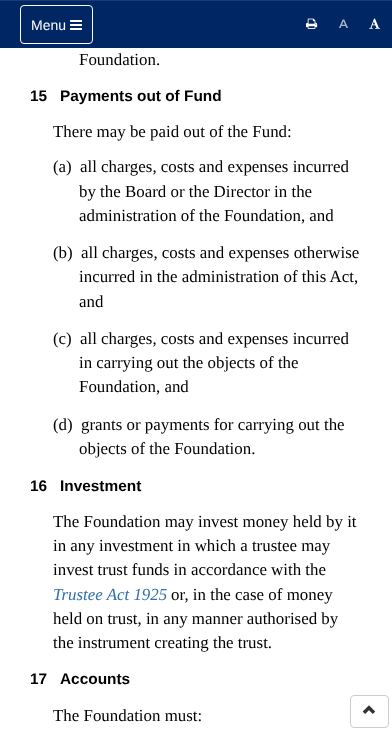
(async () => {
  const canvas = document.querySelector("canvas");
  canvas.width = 392;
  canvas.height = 731;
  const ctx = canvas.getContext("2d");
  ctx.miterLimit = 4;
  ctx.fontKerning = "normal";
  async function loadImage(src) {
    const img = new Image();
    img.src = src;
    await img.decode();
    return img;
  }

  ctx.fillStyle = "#ffffff";
  ctx.fillRect(0, 0, 392, 731);
  ctx.fillStyle = "#002664";
  ctx.fillRect(0, 1, 392, 47);
  ctx.fillStyle = "#1a3c74";
  ctx.fillRect(0, 0, 392, 1);
  ctx.beginPath();
  ctx.roundRect(20.5, 5.5, 72, 38, 3.5);
  ctx.strokeStyle = "#ffffff";
  ctx.stroke();
  ctx.drawImage(await loadImage("img/1.png"), 70, 20, 12, 10);
  ctx.drawImage(await loadImage("img/2.png"), 306, 18, 12, 11);
  ctx.drawImage(await loadImage("img/3.png"), 369, 18, 12, 11);
  ctx.beginPath();
  ctx.roundRect(350.5, 695.5, 38, 32, 3.5);
  ctx.strokeStyle = "#cccccc";
  ctx.stroke();
  ctx.drawImage(await loadImage("img/4.png"), 362, 705, 14, 9);
  ctx.font = "14px Liberation Sans";
  ctx.fillStyle = "#ffffff";
  ctx.fillText("Menu", 31, 30);
  ctx.font = "600 12px Montserrat";
  ctx.fillStyle = "#a6b3c9";
  ctx.fillText("A", 339, 28);
  ctx.font = "16.9px Liberation Serif";
  ctx.fillStyle = "#000000";
  ctx.fillText("Foundation.", 79, 65);
  ctx.font = "bold 15.4px Liberation Sans";
  ctx.fillText("15", 30, 101);
  ctx.fillText("Payments out of Fund", 60, 101);
  ctx.font = "16.9px Liberation Serif";
  for (const [text, x, y] of [
    ["There may be paid out of the Fund:", 53, 137],
    ["(a)", 53, 172],
    ["all charges, costs and expenses incurred", 80, 172],
    ["by the Board or the Director in the", 79, 197],
    ["administration of the Foundation, and", 79, 221],
    ["(b)", 53, 258],
    ["all charges, costs and expenses otherwise", 81, 258],
    ["incurred in the administration of this Act,", 79, 282],
    ["and", 79, 307],
    ["(c)", 53, 344],
    ["all charges, costs and expenses incurred", 80, 344],
    ["in carrying out the objects of the", 79, 368],
    ["Foundation, and", 79, 392],
    ["(d)", 53, 430],
    ["grants or payments for carrying out the", 81, 430],
    ["objects of the Foundation.", 79, 454],
  ]) {
    ctx.fillText(text, x, y);
  }
  ctx.font = "bold 15.4px Liberation Sans";
  ctx.fillText("16", 30, 491);
  ctx.fillText("Investment", 60, 491);
  ctx.font = "16.9px Liberation Serif";
  for (const [text, x, y] of [
    ["The Foundation may invest money held by it", 53, 527],
    ["in any investment in which a trustee may", 53, 551],
    ["invest trust funds in accordance with the", 53, 575],
  ]) {
    ctx.fillText(text, x, y);
  }
  ctx.font = "italic 16.9px Liberation Serif";
  ctx.fillStyle = "#3170ab";
  ctx.fillText("Trustee Act 1925", 53, 600);
  ctx.font = "16.9px Liberation Serif";
  ctx.fillStyle = "#000000";
  for (const [text, x, y] of [
    ["or, in the case of money", 171, 600],
    ["held on trust, in any manner authorised by", 53, 624],
    ["the instrument creating the trust.", 53, 648],
  ]) {
    ctx.fillText(text, x, y);
  }
  ctx.font = "bold 15.4px Liberation Sans";
  ctx.fillText("17", 30, 684);
  ctx.fillText("Accounts", 60, 684);
  ctx.font = "16.9px Liberation Serif";
  ctx.fillText("The Foundation must:", 53, 721);
})();
